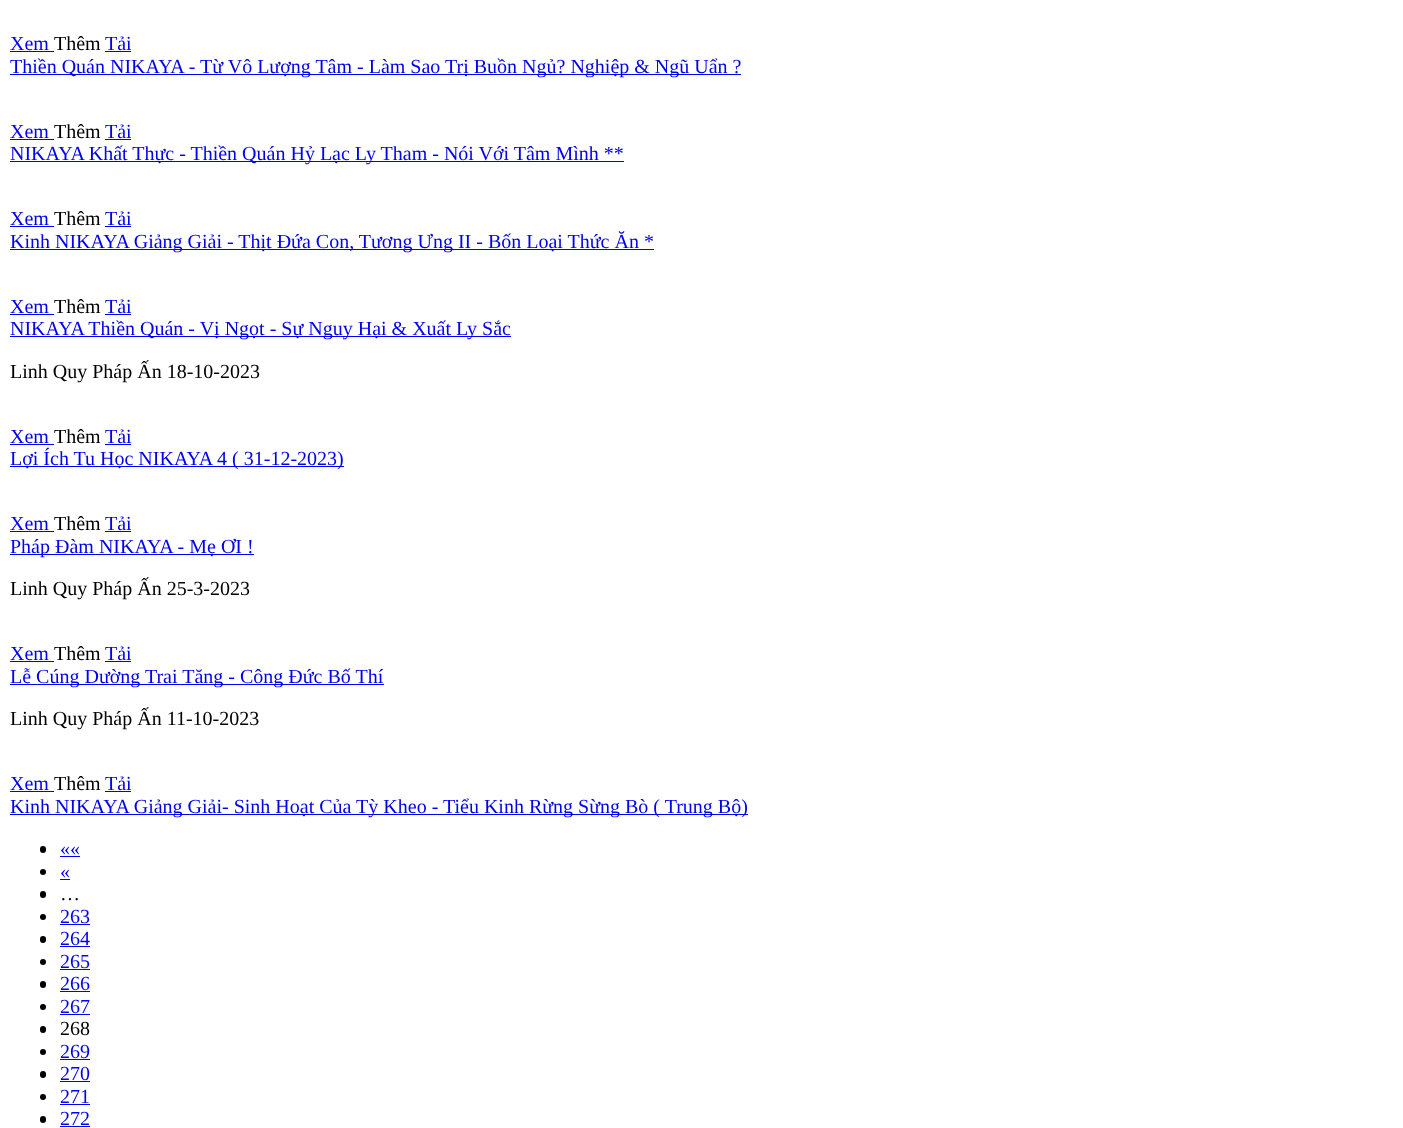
(async () => {
  const canvas = document.querySelector("canvas");
  canvas.width = 1403;
  canvas.height = 1128;
  const ctx = canvas.getContext("2d");
  ctx.miterLimit = 4;
  ctx.fontKerning = "normal";

  ctx.fillStyle = "#ffffff";
  ctx.fillRect(0, 0, 1403, 1128);
  for (const [x, y, w, h, color] of [
    [10, 51, 44, 1, "#0000ee"],
    [105, 51, 26, 1, "#0000ee"],
    [10, 74, 731, 1, "#0000ee"],
    [10, 139, 44, 1, "#0000ee"],
    [105, 139, 26, 1, "#0000ee"],
    [10, 161, 614, 1, "#0000ee"],
    [10, 226, 44, 1, "#0000ee"],
    [105, 226, 26, 1, "#0000ee"],
    [10, 249, 644, 1, "#0000ee"],
    [10, 314, 44, 1, "#0000ee"],
    [105, 314, 26, 1, "#0000ee"],
    [10, 336, 501, 1, "#0000ee"],
    [10, 444, 44, 1, "#0000ee"],
    [105, 444, 26, 1, "#0000ee"],
    [10, 466, 334, 1, "#0000ee"],
    [10, 531, 44, 1, "#0000ee"],
    [105, 531, 26, 1, "#0000ee"],
    [10, 554, 244, 1, "#0000ee"],
    [10, 661, 44, 1, "#0000ee"],
    [105, 661, 26, 1, "#0000ee"],
    [10, 684, 374, 1, "#0000ee"],
    [10, 791, 44, 1, "#0000ee"],
    [105, 791, 26, 1, "#0000ee"],
    [10, 814, 738, 1, "#0000ee"],
  ]) {
    ctx.fillStyle = color;
    ctx.fillRect(x, y, w, h);
  }
  ctx.fillStyle = "#000000";
  ctx.beginPath();
  ctx.roundRect(40, 846, 6, 7, 3);
  ctx.fill();
  ctx.fillStyle = "#0000ee";
  ctx.fillRect(60, 856, 20, 1);
  ctx.fillStyle = "#000000";
  ctx.beginPath();
  ctx.arc(43, 872, 3, 0, Math.PI * 2);
  ctx.fill();
  ctx.fillStyle = "#0000ee";
  ctx.fillRect(60, 879, 10, 1);
  ctx.fillStyle = "#000000";
  ctx.beginPath();
  ctx.roundRect(40, 891, 6, 7, 3);
  ctx.fill();
  ctx.beginPath();
  ctx.arc(43, 917, 3, 0, Math.PI * 2);
  ctx.fill();
  ctx.fillStyle = "#0000ee";
  ctx.fillRect(60, 924, 30, 1);
  ctx.fillStyle = "#000000";
  ctx.beginPath();
  ctx.roundRect(40, 936, 6, 7, 3);
  ctx.fill();
  ctx.fillStyle = "#0000ee";
  ctx.fillRect(60, 946, 30, 1);
  ctx.fillStyle = "#000000";
  ctx.beginPath();
  ctx.arc(43, 962, 3, 0, Math.PI * 2);
  ctx.fill();
  ctx.fillStyle = "#0000ee";
  ctx.fillRect(60, 969, 30, 1);
  ctx.fillStyle = "#000000";
  ctx.beginPath();
  ctx.roundRect(40, 981, 6, 7, 3);
  ctx.fill();
  ctx.fillStyle = "#0000ee";
  ctx.fillRect(60, 991, 30, 1);
  ctx.fillStyle = "#000000";
  ctx.beginPath();
  ctx.arc(43, 1007, 3, 0, Math.PI * 2);
  ctx.fill();
  ctx.fillStyle = "#0000ee";
  ctx.fillRect(60, 1014, 30, 1);
  ctx.fillStyle = "#000000";
  ctx.beginPath();
  ctx.roundRect(40, 1026, 6, 7, 3);
  ctx.fill();
  ctx.beginPath();
  ctx.arc(43, 1052, 3, 0, Math.PI * 2);
  ctx.fill();
  ctx.fillStyle = "#0000ee";
  ctx.fillRect(60, 1059, 30, 1);
  ctx.fillStyle = "#000000";
  ctx.beginPath();
  ctx.roundRect(40, 1071, 6, 7, 3);
  ctx.fill();
  ctx.fillStyle = "#0000ee";
  ctx.fillRect(60, 1081, 30, 1);
  ctx.fillStyle = "#000000";
  ctx.beginPath();
  ctx.arc(43, 1097, 3, 0, Math.PI * 2);
  ctx.fill();
  ctx.fillStyle = "#0000ee";
  ctx.fillRect(60, 1104, 30, 1);
  ctx.fillStyle = "#000000";
  ctx.beginPath();
  ctx.roundRect(40, 1116, 6, 7, 3);
  ctx.fill();
  ctx.fillStyle = "#0000ee";
  ctx.fillRect(60, 1126, 30, 1);
  ctx.font = "20px Liberation Serif";
  ctx.fillText("Xem", 10, 50);
  ctx.fillStyle = "#000000";
  ctx.fillText("Thêm", 54, 50);
  ctx.fillStyle = "#0000ee";
  for (const [text, x, y] of [
    ["Tải", 105, 50],
    ["Thiền Quán NIKAYA - Từ Vô Lượng Tâm - Làm Sao Trị Buồn Ngủ? Nghiệp & Ngũ Uẩn ?", 10, 73],
    ["Xem", 10, 138],
  ]) {
    ctx.fillText(text, x, y);
  }
  ctx.fillStyle = "#000000";
  ctx.fillText("Thêm", 54, 138);
  ctx.fillStyle = "#0000ee";
  for (const [text, x, y] of [
    ["Tải", 105, 138],
    ["NIKAYA Khất Thực - Thiền Quán Hỷ Lạc Ly Tham - Nói Với Tâm Mình **", 10, 160],
    ["Xem", 10, 225],
  ]) {
    ctx.fillText(text, x, y);
  }
  ctx.fillStyle = "#000000";
  ctx.fillText("Thêm", 54, 225);
  ctx.fillStyle = "#0000ee";
  for (const [text, x, y] of [
    ["Tải", 105, 225],
    ["Kinh NIKAYA Giảng Giải - Thịt Đứa Con, Tương Ưng II - Bốn Loại Thức Ăn *", 10, 248],
    ["Xem", 10, 313],
  ]) {
    ctx.fillText(text, x, y);
  }
  ctx.fillStyle = "#000000";
  ctx.fillText("Thêm", 54, 313);
  ctx.fillStyle = "#0000ee";
  ctx.fillText("Tải", 105, 313);
  ctx.fillText("NIKAYA Thiền Quán - Vị Ngọt - Sự Nguy Hại & Xuất Ly Sắc", 10, 335);
  ctx.fillStyle = "#000000";
  ctx.fillText("Linh Quy Pháp Ấn 18-10-2023", 10, 378);
  ctx.fillStyle = "#0000ee";
  ctx.fillText("Xem", 10, 443);
  ctx.fillStyle = "#000000";
  ctx.fillText("Thêm", 54, 443);
  ctx.fillStyle = "#0000ee";
  for (const [text, x, y] of [
    ["Tải", 105, 443],
    ["Lợi Ích Tu Học NIKAYA 4 ( 31-12-2023)", 10, 465],
    ["Xem", 10, 530],
  ]) {
    ctx.fillText(text, x, y);
  }
  ctx.fillStyle = "#000000";
  ctx.fillText("Thêm", 54, 530);
  ctx.fillStyle = "#0000ee";
  ctx.fillText("Tải", 105, 530);
  ctx.fillText("Pháp Đàm NIKAYA - Mẹ ƠI !", 10, 553);
  ctx.fillStyle = "#000000";
  ctx.fillText("Linh Quy Pháp Ấn 25-3-2023", 10, 595);
  ctx.fillStyle = "#0000ee";
  ctx.fillText("Xem", 10, 660);
  ctx.fillStyle = "#000000";
  ctx.fillText("Thêm", 54, 660);
  ctx.fillStyle = "#0000ee";
  ctx.fillText("Tải", 105, 660);
  ctx.fillText("Lễ Cúng Dường Trai Tăng - Công Đức Bố Thí", 10, 683);
  ctx.fillStyle = "#000000";
  ctx.fillText("Linh Quy Pháp Ấn 11-10-2023", 10, 725);
  ctx.fillStyle = "#0000ee";
  ctx.fillText("Xem", 10, 790);
  ctx.fillStyle = "#000000";
  ctx.fillText("Thêm", 54, 790);
  ctx.fillStyle = "#0000ee";
  for (const [text, x, y] of [
    ["Tải", 105, 790],
    ["Kinh NIKAYA Giảng Giải- Sinh Hoạt Của Tỳ Kheo - Tiểu Kinh Rừng Sừng Bò ( Trung Bộ)", 10, 813],
    ["««", 60, 855],
    ["«", 60, 878],
  ]) {
    ctx.fillText(text, x, y);
  }
  ctx.fillStyle = "#000000";
  ctx.fillText("…", 60, 900);
  ctx.fillStyle = "#0000ee";
  for (const [text, x, y] of [
    ["263", 60, 923],
    ["264", 60, 945],
    ["265", 60, 968],
    ["266", 60, 990],
    ["267", 60, 1013],
  ]) {
    ctx.fillText(text, x, y);
  }
  ctx.fillStyle = "#000000";
  ctx.fillText("268", 60, 1035);
  ctx.fillStyle = "#0000ee";
  for (const [text, x, y] of [
    ["269", 60, 1058],
    ["270", 60, 1080],
    ["271", 60, 1103],
    ["272", 60, 1125],
  ]) {
    ctx.fillText(text, x, y);
  }
})();
